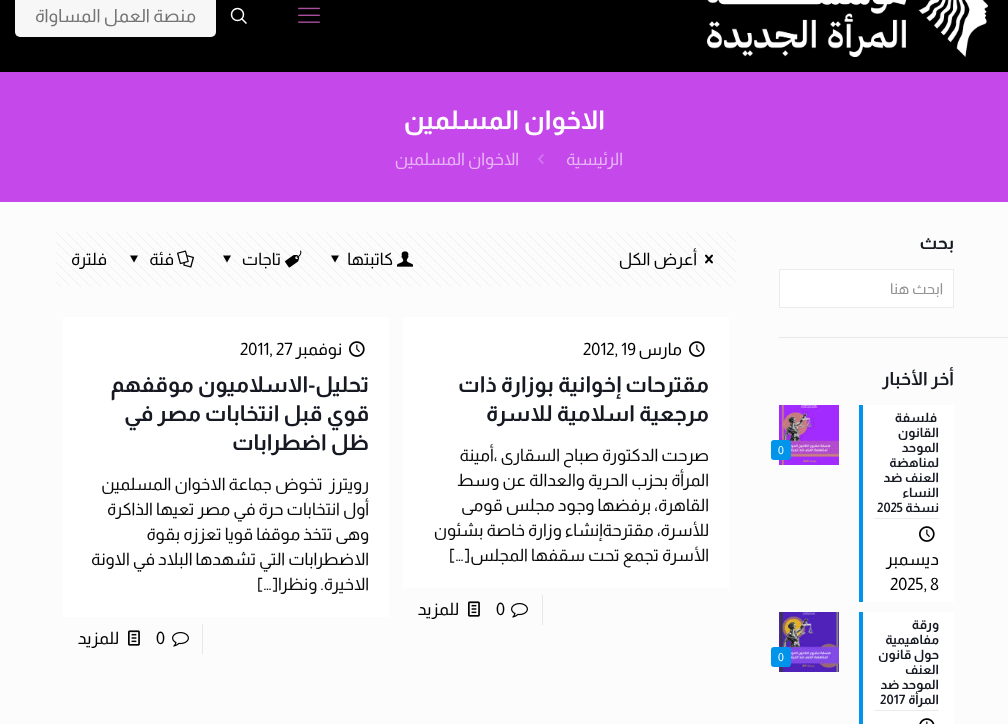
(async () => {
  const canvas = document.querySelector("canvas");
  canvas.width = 1008;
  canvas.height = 724;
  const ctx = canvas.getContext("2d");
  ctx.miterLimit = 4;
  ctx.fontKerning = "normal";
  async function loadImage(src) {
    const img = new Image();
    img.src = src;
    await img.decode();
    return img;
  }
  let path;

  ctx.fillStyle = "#fcfcfc";
  ctx.fillRect(0, 0, 1008, 724);
  ctx.fillStyle = "#000000";
  ctx.fillRect(0, 0, 1008, 72);
  ctx.drawImage(await loadImage("img/1.png"), 707, 0, 281, 57);
  ctx.drawImage(await loadImage("img/2.png"), 298, 7, 22, 16);
  ctx.beginPath();
  ctx.arc(237.5, 14.5, 6, 0, Math.PI * 2);
  ctx.strokeStyle = "#ffffff";
  ctx.lineWidth = 1.5;
  ctx.stroke();
  path = new Path2D("M241.5 18.5L246.5 23.5");
  ctx.stroke(path);
  ctx.fillStyle = "#f7f7f7";
  ctx.beginPath();
  ctx.roundRect(15, -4, 201, 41, 5);
  ctx.fill();
  ctx.fillStyle = "#c548ea";
  ctx.fillRect(0, 72, 1008, 130);
  ctx.drawImage(await loadImage("img/3.png"), 538, 154, 6, 10);
  ctx.fillStyle = "#ffffff";
  ctx.beginPath();
  ctx.rect(779.5, 269.5, 174, 38);
  ctx.fill();
  ctx.strokeStyle = "#ebebeb";
  ctx.lineWidth = 1;
  ctx.stroke();
  for (const [x, y, w, h, color] of [
    [779, 337, 229, 1, "#e8e8e8"],
    [863, 405, 91, 197, "#ffffff"],
    [874, 518, 65, 1, "#ebebeb"],
    [859, 405, 4, 197, "#0095eb"],
  ]) {
    ctx.fillStyle = color;
    ctx.fillRect(x, y, w, h);
  }
  ctx.drawImage(await loadImage("img/4.png"), 919, 526, 16, 16);
  ctx.drawImage(await loadImage("img/5.png"), 779, 405, 60, 60);
  ctx.beginPath();
  ctx.roundRect(771, 440, 20, 20, 3);
  ctx.fill();
  for (const [x, y, w, h, color] of [
    [863, 612, 91, 112, "#ffffff"],
    [874, 710, 65, 1, "#ebebeb"],
    [859, 612, 4, 112, "#0095eb"],
  ]) {
    ctx.fillStyle = color;
    ctx.fillRect(x, y, w, h);
  }
  ctx.drawImage(await loadImage("img/6.png"), 919, 718, 16, 6);
  ctx.drawImage(await loadImage("img/7.png"), 779, 612, 60, 60);
  ctx.beginPath();
  ctx.roundRect(771, 647, 20, 20, 3);
  ctx.fill();
  ctx.drawImage(await loadImage("img/8.png"), 56, 232, 680, 55);
  ctx.drawImage(await loadImage("img/9.png"), 705, 254, 8, 10);
  ctx.drawImage(await loadImage("img/10.png"), 397, 251, 16, 16);
  ctx.fillStyle = "#000000";
  path = new Path2D("M339 255.5L335 262.5L331 255.5Z");
  ctx.fill(path);
  ctx.drawImage(await loadImage("img/11.png"), 285, 250, 17, 18);
  path = new Path2D("M231 255.5L227 262.5L223 255.5Z");
  ctx.fill(path);
  ctx.drawImage(await loadImage("img/12.png"), 177, 250, 17, 18);
  path = new Path2D("M138 255.5L134 262.5L130 255.5Z");
  ctx.fill(path);
  ctx.fillStyle = "#ffffff";
  ctx.fillRect(403, 317, 326, 271);
  ctx.drawImage(await loadImage("img/4.png"), 689, 341, 16, 16);
  ctx.fillStyle = "#e6e6e6";
  ctx.fillRect(542, 595, 1, 30);
  ctx.drawImage(await loadImage("img/13.png"), 511, 603, 17, 15);
  ctx.drawImage(await loadImage("img/14.png"), 468, 601, 12, 16);
  ctx.fillStyle = "#ffffff";
  ctx.fillRect(63, 317, 326, 300);
  ctx.drawImage(await loadImage("img/4.png"), 349, 341, 16, 16);
  ctx.fillStyle = "#e6e6e6";
  ctx.fillRect(202, 624, 1, 30);
  ctx.drawImage(await loadImage("img/13.png"), 172, 632, 17, 15);
  ctx.drawImage(await loadImage("img/14.png"), 128, 630, 12, 16);
  ctx.direction = "rtl";
  ctx.font = "18px Almarai";
  ctx.fillStyle = "#747474";
  ctx.fillText("منصة العمل المساواة", 196, 22);
  ctx.font = "bold 26px Almarai";
  ctx.fillStyle = "#ffffff";
  ctx.fillText("الاخوان المسلمين", 605, 129);
  ctx.font = "17px Almarai";
  ctx.fillStyle = "#e8b6f7";
  ctx.fillText("الرئيسية", 623, 165);
  ctx.fillText("الاخوان المسلمين", 519, 165);
  ctx.font = "bold 18px Almarai";
  ctx.fillStyle = "#161922";
  ctx.fillText("بحث", 954, 249);
  ctx.font = "15px Almarai";
  ctx.fillStyle = "#929292";
  ctx.fillText("ابحث هنا", 943, 294);
  ctx.font = "bold 18px Almarai";
  ctx.fillStyle = "#161922";
  ctx.fillText("أخر الأخبار", 954, 385);
  ctx.font = "bold 13px Almarai";
  for (const [text, x, y] of [
    ["فلسفة", 937, 422],
    ["القانون", 939, 437],
    ["الموحد", 939, 452],
    ["لمناهضة", 939, 467],
    ["العنف ضد", 939, 482],
    ["النساء", 939, 497],
    ["نسخة", 939, 512],
  ]) {
    ctx.fillText(text, x, y);
  }
  ctx.direction = "ltr";
  ctx.fillText("2025", 877, 512);
  ctx.direction = "rtl";
  ctx.font = "17px Almarai";
  ctx.fillStyle = "#000000";
  ctx.fillText("ديسمبر", 939, 565);
  ctx.direction = "ltr";
  ctx.fillText("2025, 8", 890, 590);
  ctx.font = "11px Almarai";
  ctx.fillStyle = "#ffffff";
  ctx.fillText("0", 778, 454);
  ctx.direction = "rtl";
  ctx.font = "bold 13px Almarai";
  ctx.fillStyle = "#161922";
  for (const [text, x, y] of [
    ["ورقة", 939, 629],
    ["مفاهيمية", 939, 644],
    ["حول قانون", 939, 659],
    ["العنف", 939, 674],
    ["الموحد ضد", 939, 689],
    ["المرأة", 939, 704],
  ]) {
    ctx.fillText(text, x, y);
  }
  ctx.direction = "ltr";
  ctx.fillText("2017", 880, 704);
  ctx.font = "11px Almarai";
  ctx.fillStyle = "#ffffff";
  ctx.fillText("0", 778, 661);
  ctx.direction = "rtl";
  ctx.font = "17px Almarai";
  ctx.fillStyle = "#000000";
  for (const [text, x, y] of [
    ["أعرض الكل", 697, 265],
    ["كاتبتها", 393, 265],
    ["تاجات", 281, 265],
    ["فئة", 174, 265],
    ["فلترة", 107, 265],
    ["مارس", 682, 355],
  ]) {
    ctx.fillText(text, x, y);
  }
  ctx.direction = "ltr";
  ctx.fillText("2012, 19", 583, 355);
  ctx.direction = "rtl";
  ctx.font = "bold 22px Almarai";
  ctx.fillStyle = "#161922";
  for (const [text, x, y] of [
    ["مقترحات إخوانية بوزارة", 709, 392],
    ["ذات", 497, 392],
    ["مرجعية اسلامية للاسرة", 709, 421],
  ]) {
    ctx.fillText(text, x, y);
  }
  ctx.font = "17px Almarai";
  ctx.fillStyle = "#0a0a0a";
  for (const [text, x, y] of [
    ["صرحت الدكتورة صباح السقارى ،أمينة", 709, 461],
    ["المرأة بحزب الحرية والعدالة عن وسط", 709, 486],
    ["القاهرة، برفضها وجود مجلس قومى", 709, 511],
    ["للأسرة، مقترحةإنشاء وزارة خاصة بشئون", 709, 536],
    ["الأسرة تجمع تحت سقفها المجلس", 709, 561],
  ]) {
    ctx.fillText(text, x, y);
  }
  ctx.direction = "ltr";
  ctx.fillText("[…]", 449, 561);
  ctx.fillStyle = "#000000";
  ctx.fillText("0", 496, 615);
  ctx.direction = "rtl";
  ctx.fillText("للمزيد", 459, 615);
  ctx.fillText("نوفمبر", 342, 355);
  ctx.direction = "ltr";
  ctx.fillText("2011, 27", 240, 355);
  ctx.direction = "rtl";
  ctx.font = "bold 22px Almarai";
  ctx.fillStyle = "#161922";
  for (const [text, x, y] of [
    ["تحليل-الاسلاميون موقفهم", 369, 392],
    ["قوي قبل انتخابات مصر في", 369, 421],
    ["ظل اضطرابات", 369, 450],
  ]) {
    ctx.fillText(text, x, y);
  }
  ctx.font = "17px Almarai";
  ctx.fillStyle = "#0a0a0a";
  for (const [text, x, y] of [
    ["رويترز  تخوض جماعة الاخوان المسلمين", 369, 490],
    ["أول انتخابات حرة في مصر تعيها الذاكرة", 369, 515],
    ["وهى تتخذ موقفا قويا تعززه بقوة", 369, 540],
    ["الاضطرابات التي تشهدها البلاد في الاونة", 369, 565],
    ["الاخيرة. ونظرا", 369, 590],
  ]) {
    ctx.fillText(text, x, y);
  }
  ctx.direction = "ltr";
  ctx.fillText("[…]", 257, 590);
  ctx.fillStyle = "#000000";
  ctx.fillText("0", 156, 644);
  ctx.direction = "rtl";
  ctx.fillText("للمزيد", 119, 644);
})();
